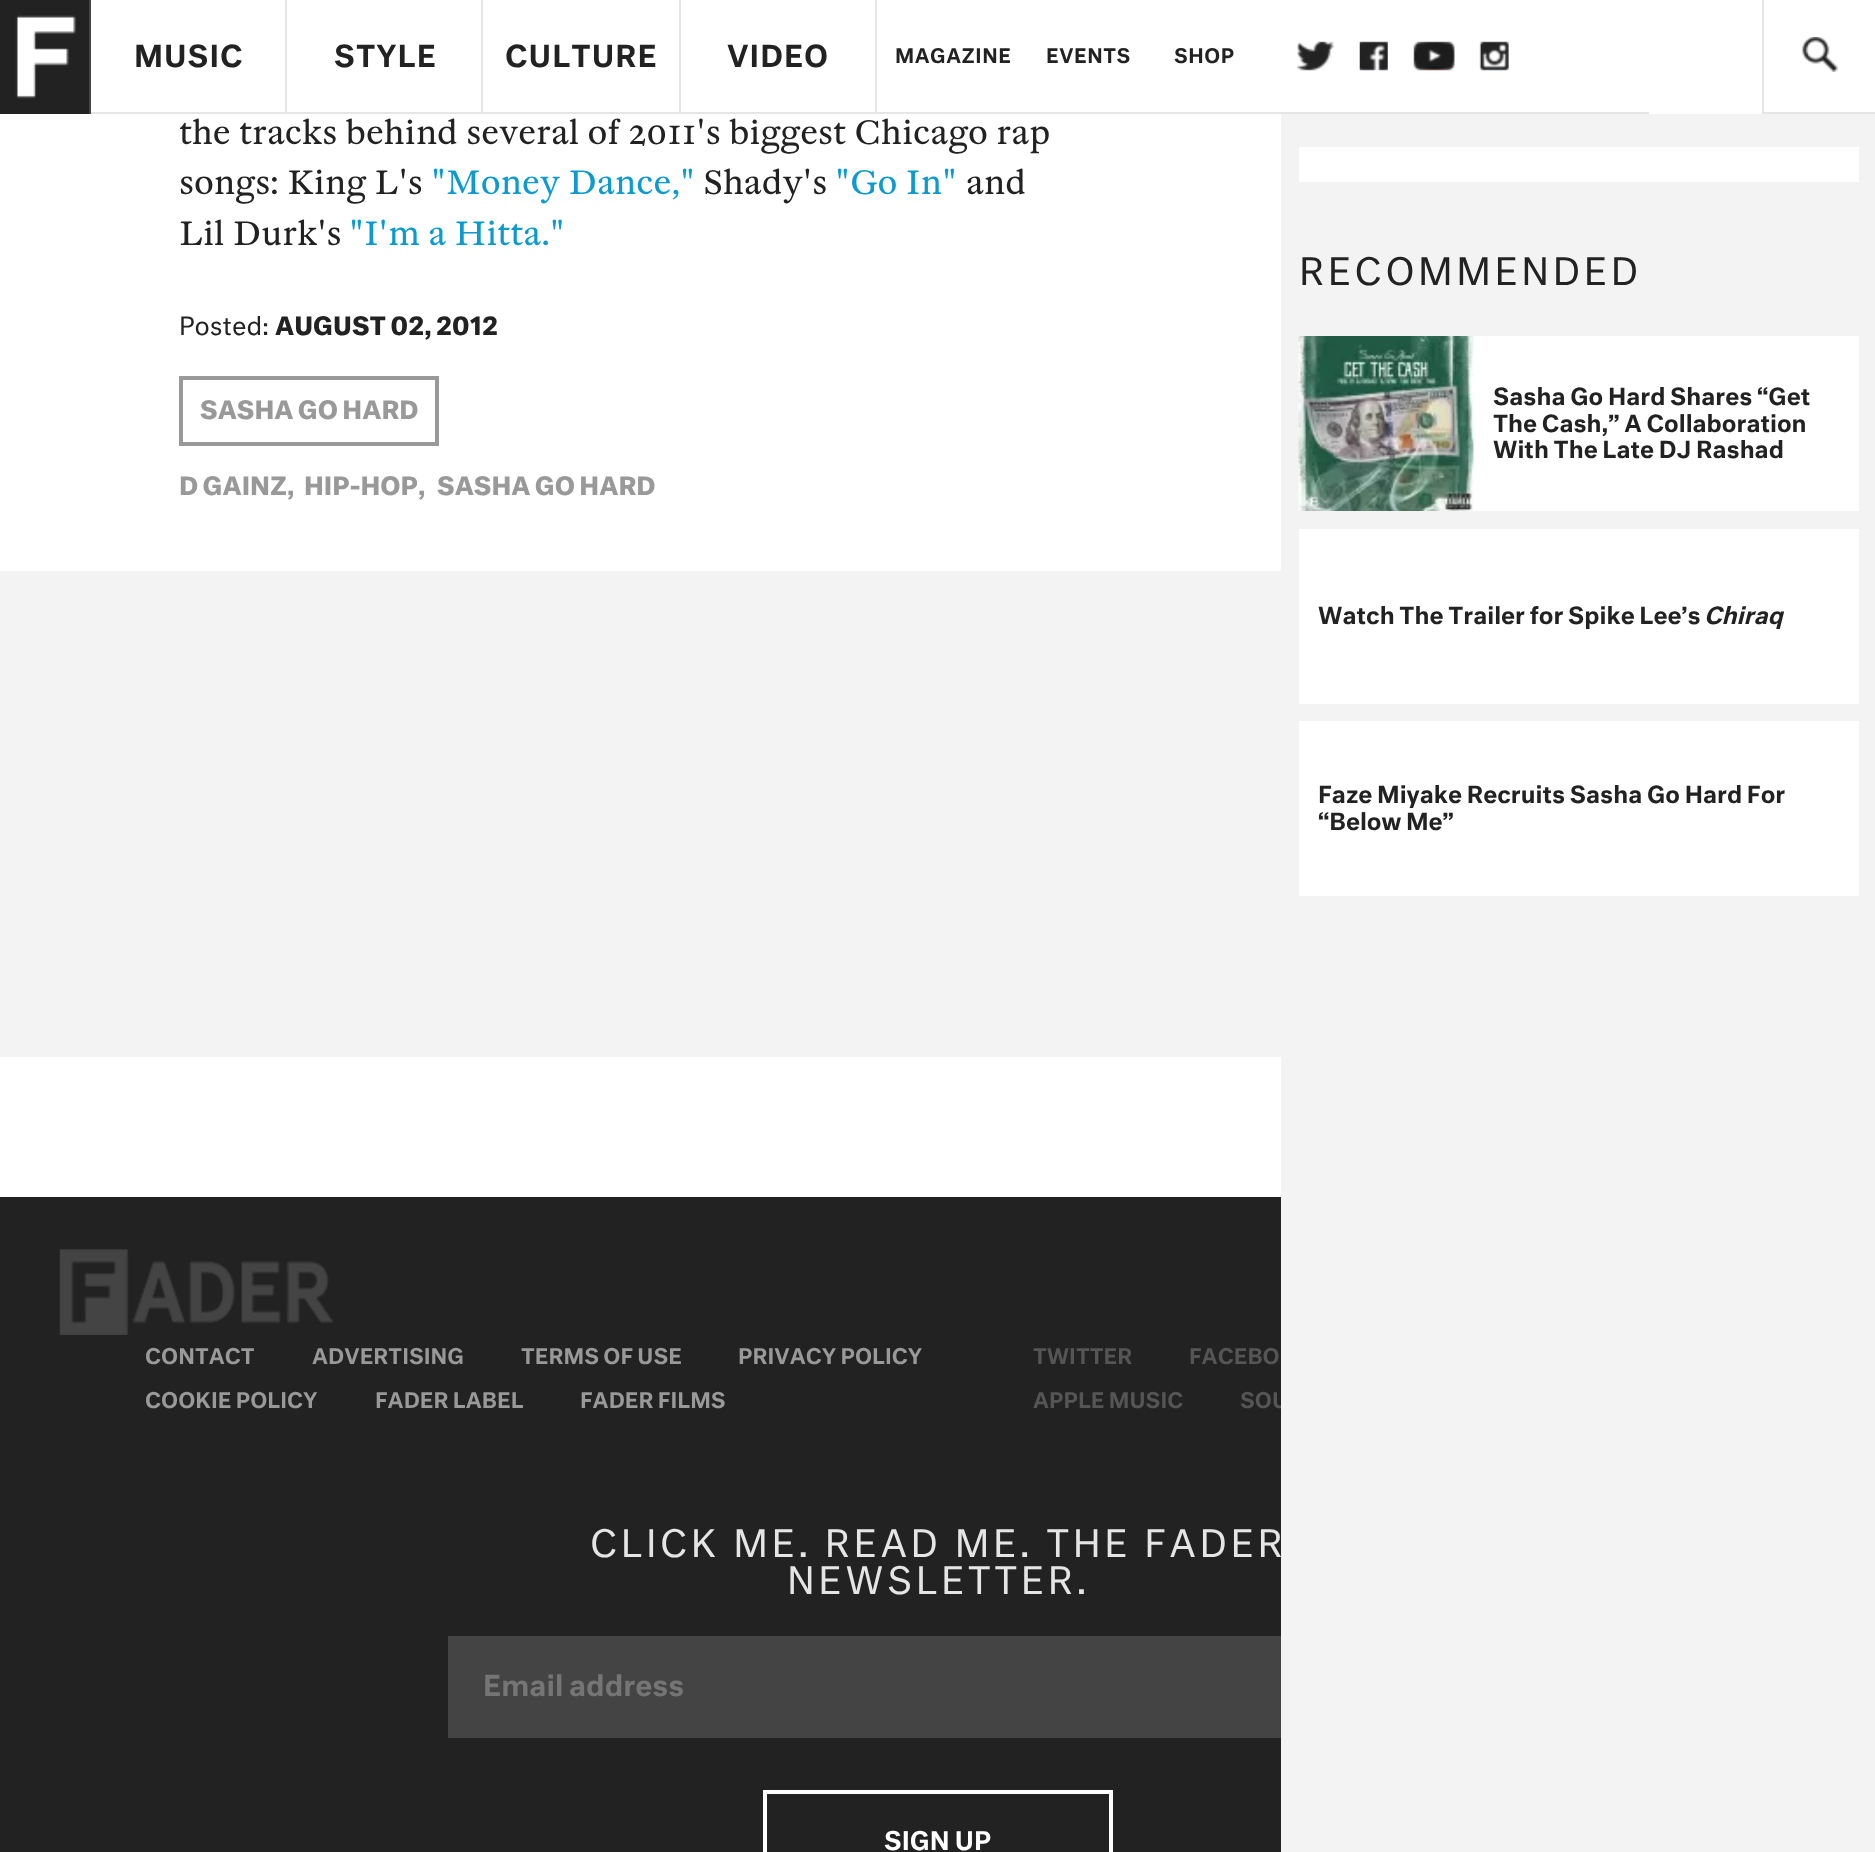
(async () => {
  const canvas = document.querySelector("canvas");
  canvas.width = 1875;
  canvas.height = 1852;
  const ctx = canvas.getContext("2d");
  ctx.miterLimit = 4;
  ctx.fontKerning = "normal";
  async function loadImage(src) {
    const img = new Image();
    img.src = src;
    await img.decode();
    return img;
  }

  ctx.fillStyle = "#f3f3f3";
  ctx.fillRect(0, 0, 1875, 1852);
  ctx.fillStyle = "#ffffff";
  ctx.fillRect(15, 0, 1860, 114);
  ctx.fillStyle = "#444444";
  ctx.fillRect(89, 0, 2, 114);
  ctx.drawImage(await loadImage("img/1.png"), 0, 0, 89, 114);
  for (const [x, y, w, h, color] of [
    [285, 0, 2, 114, "#e5e5e5"],
    [91, 112, 196, 2, "#e5e5e5"],
    [481, 0, 2, 114, "#e5e5e5"],
    [287, 112, 196, 2, "#e5e5e5"],
    [679, 0, 2, 114, "#e5e5e5"],
    [483, 112, 198, 2, "#e5e5e5"],
    [875, 0, 2, 114, "#e5e5e5"],
    [681, 112, 968, 2, "#e5e5e5"],
  ]) {
    ctx.fillStyle = color;
    ctx.fillRect(x, y, w, h);
  }
  ctx.drawImage(await loadImage("img/2.png"), 1297, 41, 37, 30);
  ctx.drawImage(await loadImage("img/3.png"), 1359, 41, 29, 30);
  ctx.drawImage(await loadImage("img/4.png"), 1413, 41, 42, 30);
  ctx.drawImage(await loadImage("img/5.png"), 1479, 41, 30, 30);
  ctx.fillRect(1762, 112, 113, 2);
  ctx.fillRect(1762, 0, 2, 114);
  ctx.drawImage(await loadImage("img/6.png"), 1801, 37, 37, 35);
  ctx.fillStyle = "#ffffff";
  ctx.fillRect(0, 114, 1281, 457);
  ctx.strokeStyle = "#999999";
  ctx.lineWidth = 4;
  ctx.strokeRect(181, 378, 256, 66);
  ctx.fillRect(1299, 147, 560, 35);
  ctx.fillRect(1473, 336, 386, 175);
  ctx.drawImage(await loadImage("img/7.png"), 1298, 336, 176, 175);
  for (const [x, y, w, h, color] of [
    [1299, 529, 560, 175, "#ffffff"],
    [1299, 721, 560, 175, "#ffffff"],
    [0, 1057, 1281, 140, "#ffffff"],
    [0, 1197, 1281, 655, "#222222"],
  ]) {
    ctx.fillStyle = color;
    ctx.fillRect(x, y, w, h);
  }
  ctx.drawImage(await loadImage("img/8.png"), 59, 1249, 274, 86);
  ctx.fillStyle = "#444444";
  ctx.fillRect(448, 1636, 833, 102);
  ctx.strokeStyle = "#ffffff";
  ctx.strokeRect(765, 1792, 346, 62);
  ctx.letterSpacing = "1px";
  ctx.font = "500 29.5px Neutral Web";
  ctx.fillStyle = "#222222";
  for (const [text, x, y] of [
    ["MUSIC", 134, 67],
    ["STYLE", 334, 67],
    ["CULTURE", 505, 67],
    ["VIDEO", 727, 67],
  ]) {
    ctx.fillText(text, x, y);
  }
  ctx.letterSpacing = "0.5px";
  ctx.font = "500 19.5px Neutral Web";
  for (const [text, x, y] of [
    ["MAGAZINE", 895, 63],
    ["EVENTS", 1046, 63],
    ["SHOP", 1174, 63],
  ]) {
    ctx.fillText(text, x, y);
  }
  ctx.letterSpacing = "0px";
  ctx.font = "33.6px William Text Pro";
  ctx.fillText("the tracks behind several of 2011's biggest Chicago rap", 179, 144);
  ctx.fillText("songs: King L's", 179, 194);
  ctx.fillStyle = "#0d9bcf";
  ctx.fillText("\"Money Dance,\"", 431, 194);
  ctx.fillStyle = "#222222";
  ctx.fillText("Shady's", 703, 194);
  ctx.fillStyle = "#0d9bcf";
  ctx.fillText("\"Go In\"", 835, 194);
  ctx.fillStyle = "#222222";
  ctx.fillText("and", 966, 194);
  ctx.fillText("Lil Durk's", 179, 245);
  ctx.fillStyle = "#0d9bcf";
  ctx.fillText("\"I'm a Hitta.\"", 349, 245);
  ctx.font = "24.5px Neutral Web";
  ctx.fillStyle = "#222222";
  ctx.fillText("Posted:", 179, 335);
  ctx.font = "bold 24.5px Neutral Web";
  ctx.fillText("AUGUST 02, 2012", 275, 335);
  ctx.fillStyle = "#999999";
  for (const [text, x, y] of [
    ["SASHA GO HARD", 200, 419],
    ["D GAINZ,", 179, 495],
    ["HIP-HOP,", 304, 495],
    ["SASHA GO HARD", 437, 495],
  ]) {
    ctx.fillText(text, x, y);
  }
  ctx.letterSpacing = "3.5px";
  ctx.font = "36.75px Neutral Web";
  ctx.fillStyle = "#222222";
  ctx.fillText("RECOMMENDED", 1299, 285);
  ctx.letterSpacing = "0px";
  ctx.font = "500 23px Neutral Web";
  for (const [text, x, y] of [
    ["Sasha Go Hard Shares “Get", 1493, 405],
    ["The Cash,” A Collaboration", 1493, 432],
    ["With The Late DJ Rashad", 1493, 458],
    ["Watch The Trailer for Spike Lee’s", 1318, 624],
  ]) {
    ctx.fillText(text, x, y);
  }
  ctx.font = "italic 500 23px Neutral Web";
  ctx.fillText("Chiraq", 1704, 624);
  ctx.font = "500 23px Neutral Web";
  ctx.fillText("Faze Miyake Recruits Sasha Go Hard For", 1318, 803);
  ctx.fillText("“Below Me”", 1318, 830);
  ctx.font = "500 21px Neutral Web";
  ctx.fillStyle = "#999999";
  for (const [text, x, y] of [
    ["CONTACT", 145, 1364],
    ["ADVERTISING", 312, 1364],
    ["TERMS OF USE", 521, 1364],
    ["PRIVACY POLICY", 738, 1364],
    ["COOKIE POLICY", 145, 1408],
    ["FADER LABEL", 375, 1408],
    ["FADER FILMS", 580, 1408],
  ]) {
    ctx.fillText(text, x, y);
  }
  ctx.fillStyle = "#555555";
  for (const [text, x, y] of [
    ["TWITTER", 1033, 1364],
    ["FACEBO", 1189, 1364],
    ["APPLE MUSIC", 1033, 1408],
    ["SOU", 1240, 1408],
  ]) {
    ctx.fillText(text, x, y);
  }
  ctx.fillStyle = "#f3f3f3";
  ctx.fillRect(1281, 1392, 6, 17);
  ctx.letterSpacing = "3.5px";
  ctx.font = "36.75px Neutral Web";
  ctx.fillStyle = "#e5e5e5";
  ctx.fillText("CLICK ME. READ ME. THE FADER", 590, 1557);
  ctx.fillText("NEWSLETTER.", 787, 1594);
  ctx.letterSpacing = "0px";
  ctx.font = "500 28px Neutral Web";
  ctx.fillStyle = "#757575";
  ctx.fillText("Email address", 483, 1696);
  ctx.font = "500 25px Neutral Web";
  ctx.fillStyle = "#ffffff";
  ctx.fillText("SIGN UP", 884, 1850);
})();
